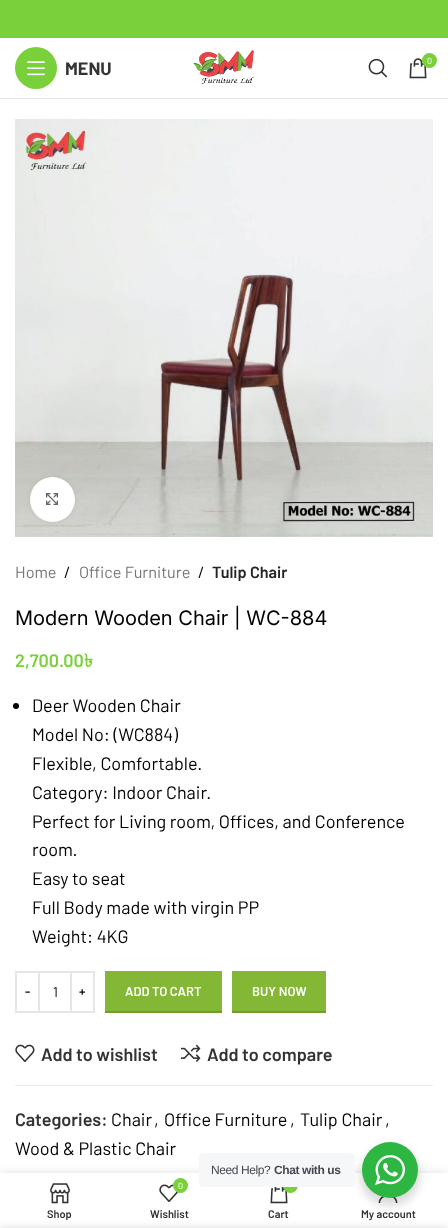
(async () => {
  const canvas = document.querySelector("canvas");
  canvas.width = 448;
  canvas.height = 1228;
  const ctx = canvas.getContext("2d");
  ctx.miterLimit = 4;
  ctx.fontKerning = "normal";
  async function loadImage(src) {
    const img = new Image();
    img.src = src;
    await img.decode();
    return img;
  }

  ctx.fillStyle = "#ffffff";
  ctx.fillRect(0, 0, 448, 1228);
  ctx.fillStyle = "#7ad03a";
  ctx.fillRect(0, 0, 448, 38);
  ctx.fillStyle = "#e8e8e8";
  ctx.fillRect(0, 98, 448, 1);
  ctx.drawImage(await loadImage("img/1.png"), 193, 50, 61, 34);
  ctx.drawImage(await loadImage("img/2.png"), 368, 58, 20, 20);
  ctx.drawImage(await loadImage("img/3.png"), 409, 58, 18, 21);
  ctx.fillStyle = "#7ad03a";
  ctx.beginPath();
  ctx.arc(429.5, 60.5, 7.5, 0, Math.PI * 2);
  ctx.fill();
  ctx.beginPath();
  ctx.arc(36, 68, 21, 0, Math.PI * 2);
  ctx.fill();
  ctx.drawImage(await loadImage("img/4.png"), 27, 61, 18, 15);
  ctx.drawImage(await loadImage("img/5.png"), 15, 119, 418, 418);
  ctx.fillStyle = "rgba(0, 0, 0, 0.08)";
  ctx.filter = "blur(2.5px)";
  ctx.beginPath();
  ctx.roundRect(30, 477, 45, 45, 22.5);
  ctx.fill();
  ctx.filter = "none";
  ctx.fillStyle = "#ffffff";
  ctx.beginPath();
  ctx.arc(52.5, 499.5, 22.5, 0, Math.PI * 2);
  ctx.fill();
  ctx.drawImage(await loadImage("img/6.png"), 46, 493, 12, 12);
  ctx.fillStyle = "#000000";
  ctx.beginPath();
  ctx.arc(16, 706, 3, 0, Math.PI * 2);
  ctx.fill();
  ctx.strokeStyle = "#e6e6e6";
  ctx.lineWidth = 2;
  ctx.strokeRect(16, 972, 23, 40);
  ctx.fillStyle = "#e6e6e6";
  ctx.fillRect(40, 971, 30, 2);
  ctx.fillRect(40, 1011, 30, 2);
  ctx.strokeRect(71, 972, 23, 40);
  for (const [x, y, w, h, color] of [
    [105, 971, 117, 40, "#83b735"],
    [105, 1011, 117, 2, "#6f9c2d"],
    [232, 971, 94, 40, "#83b735"],
    [232, 1011, 94, 2, "#6f9c2d"],
  ]) {
    ctx.fillStyle = color;
    ctx.fillRect(x, y, w, h);
  }
  ctx.drawImage(await loadImage("img/7.png"), 15, 1044, 20, 18);
  ctx.drawImage(await loadImage("img/8.png"), 181, 1044, 20, 18);
  ctx.fillStyle = "#ebebeb";
  ctx.fillRect(15, 1085, 418, 1);
  ctx.fillStyle = "rgba(0, 0, 0, 0.12)";
  ctx.filter = "blur(4.5px)";
  ctx.beginPath();
  ctx.rect(0, 1173, 448, 55);
  ctx.fill();
  ctx.filter = "none";
  ctx.fillStyle = "#ffffff";
  ctx.fillRect(0, 1173, 448, 55);
  ctx.drawImage(await loadImage("img/13.png"), 378, 1196, 20, 7);
  ctx.fillStyle = "rgba(0, 0, 0, 0.14)";
  ctx.filter = "blur(4px)";
  ctx.beginPath();
  ctx.roundRect(360, 1146, 60, 60, 30);
  ctx.fill();
  ctx.filter = "none";
  ctx.drawImage(await loadImage("img/12.png"), 270, 1187, 18, 17);
  ctx.fillStyle = "#7ad03a";
  ctx.beginPath();
  ctx.arc(290.5, 1185.5, 7.5, 0, Math.PI * 2);
  ctx.fill();
  ctx.fillStyle = "#f5f7f9";
  ctx.beginPath();
  ctx.roundRect(199, 1153, 156, 34, 4);
  ctx.fill();
  ctx.fillStyle = "#2db742";
  ctx.beginPath();
  ctx.arc(390, 1170, 28, 0, Math.PI * 2);
  ctx.fill();
  ctx.drawImage(await loadImage("img/9.png"), 375, 1155, 30, 30);
  ctx.drawImage(await loadImage("img/10.png"), 50, 1183, 20, 21);
  ctx.drawImage(await loadImage("img/11.png"), 159, 1184, 20, 18);
  ctx.fillStyle = "#7ad03a";
  ctx.beginPath();
  ctx.arc(180.5, 1185.5, 7.5, 0, Math.PI * 2);
  ctx.fill();
  ctx.fillStyle = "rgba(0, 0, 0, 0.14)";
  ctx.filter = "blur(4.5px)";
  ctx.beginPath();
  ctx.rect(0, 1228, 448, 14);
  ctx.fill();
  ctx.filter = "none";
  ctx.font = "9px Barlow";
  ctx.fillStyle = "#ffffff";
  ctx.fillText("0", 427, 64);
  ctx.font = "bold 18px Barlow";
  ctx.fillStyle = "#333333";
  ctx.fillText("MENU", 65, 75);
  ctx.font = "16.25px Barlow";
  ctx.fillStyle = "#767676";
  ctx.fillText("Home", 15, 578);
  ctx.fillStyle = "#000000";
  ctx.fillText("/", 64, 578);
  ctx.fillStyle = "#767676";
  ctx.fillText("Office Furniture", 79, 578);
  ctx.fillStyle = "#000000";
  ctx.fillText("/", 198, 578);
  ctx.font = "600 16.25px Barlow";
  ctx.fillStyle = "#242424";
  ctx.fillText("Tulip Chair", 212, 578);
  ctx.font = "20px Inter";
  ctx.fillStyle = "#000000";
  ctx.fillText("Modern Wooden Chair | WC-884", 15, 625);
  ctx.font = "600 18px Barlow";
  ctx.fillStyle = "#7ad03a";
  ctx.fillText("2,700.00", 15, 667);
  ctx.font = "bold 18px Lohit Bengali";
  ctx.fillText("৳", 84, 667);
  ctx.font = "18px Barlow";
  ctx.fillStyle = "#000000";
  for (const [text, x, y] of [
    ["Deer Wooden Chair", 32, 712],
    ["Model No: (WC884)", 32, 741],
    ["Flexible, Comfortable.", 32, 770],
    ["Category: Indoor Chair.", 32, 799],
    ["Perfect for Living room, Offices, and Conference", 32, 828],
    ["room.", 32, 856],
    ["Easy to seat", 32, 885],
    ["Full Body made with virgin PP", 32, 914],
    ["Weight: 4KG", 32, 943],
  ]) {
    ctx.fillText(text, x, y);
  }
  ctx.font = "600 13px Barlow";
  ctx.fillText("-", 25, 996);
  ctx.font = "14px Barlow";
  ctx.fillText("1", 53, 997);
  ctx.font = "600 13px Barlow";
  ctx.fillText("+", 79, 996);
  ctx.fillStyle = "#ffffff";
  ctx.fillText("ADD TO CART", 125, 996);
  ctx.fillText("BUY NOW", 252, 996);
  ctx.font = "600 18px Barlow";
  ctx.fillStyle = "#333333";
  for (const [text, x, y] of [
    ["Add to wishlist", 41, 1061],
    ["Add to compare", 207, 1061],
    ["Categories:", 15, 1126],
  ]) {
    ctx.fillText(text, x, y);
  }
  ctx.font = "18px Barlow";
  ctx.fillStyle = "#000000";
  for (const [text, x, y] of [
    ["Chair", 111, 1126],
    [",", 154, 1126],
    ["Office Furniture", 164, 1126],
    [",", 290, 1126],
    ["Tulip Chair", 300, 1126],
    [",", 385, 1126],
    ["Wood & Plastic Chair", 15, 1155],
  ]) {
    ctx.fillText(text, x, y);
  }
  ctx.letterSpacing = "-0.4px";
  ctx.font = "12px Liberation Sans";
  ctx.fillStyle = "#43474e";
  ctx.fillText("Need Help?", 211, 1174);
  ctx.font = "bold 12px Liberation Sans";
  ctx.fillText("Chat with us", 274, 1174);
  ctx.letterSpacing = "0px";
  ctx.font = "600 11px Barlow";
  ctx.fillStyle = "#333333";
  ctx.fillText("Shop", 47, 1218);
  ctx.font = "9px Barlow";
  ctx.fillStyle = "#ffffff";
  ctx.fillText("0", 178, 1189);
  ctx.font = "600 11px Barlow";
  ctx.fillStyle = "#333333";
  for (const [text, x, y] of [
    ["Wishlist", 150, 1218],
    ["Cart", 268, 1218],
    ["My account", 361, 1218],
  ]) {
    ctx.fillText(text, x, y);
  }
})();
